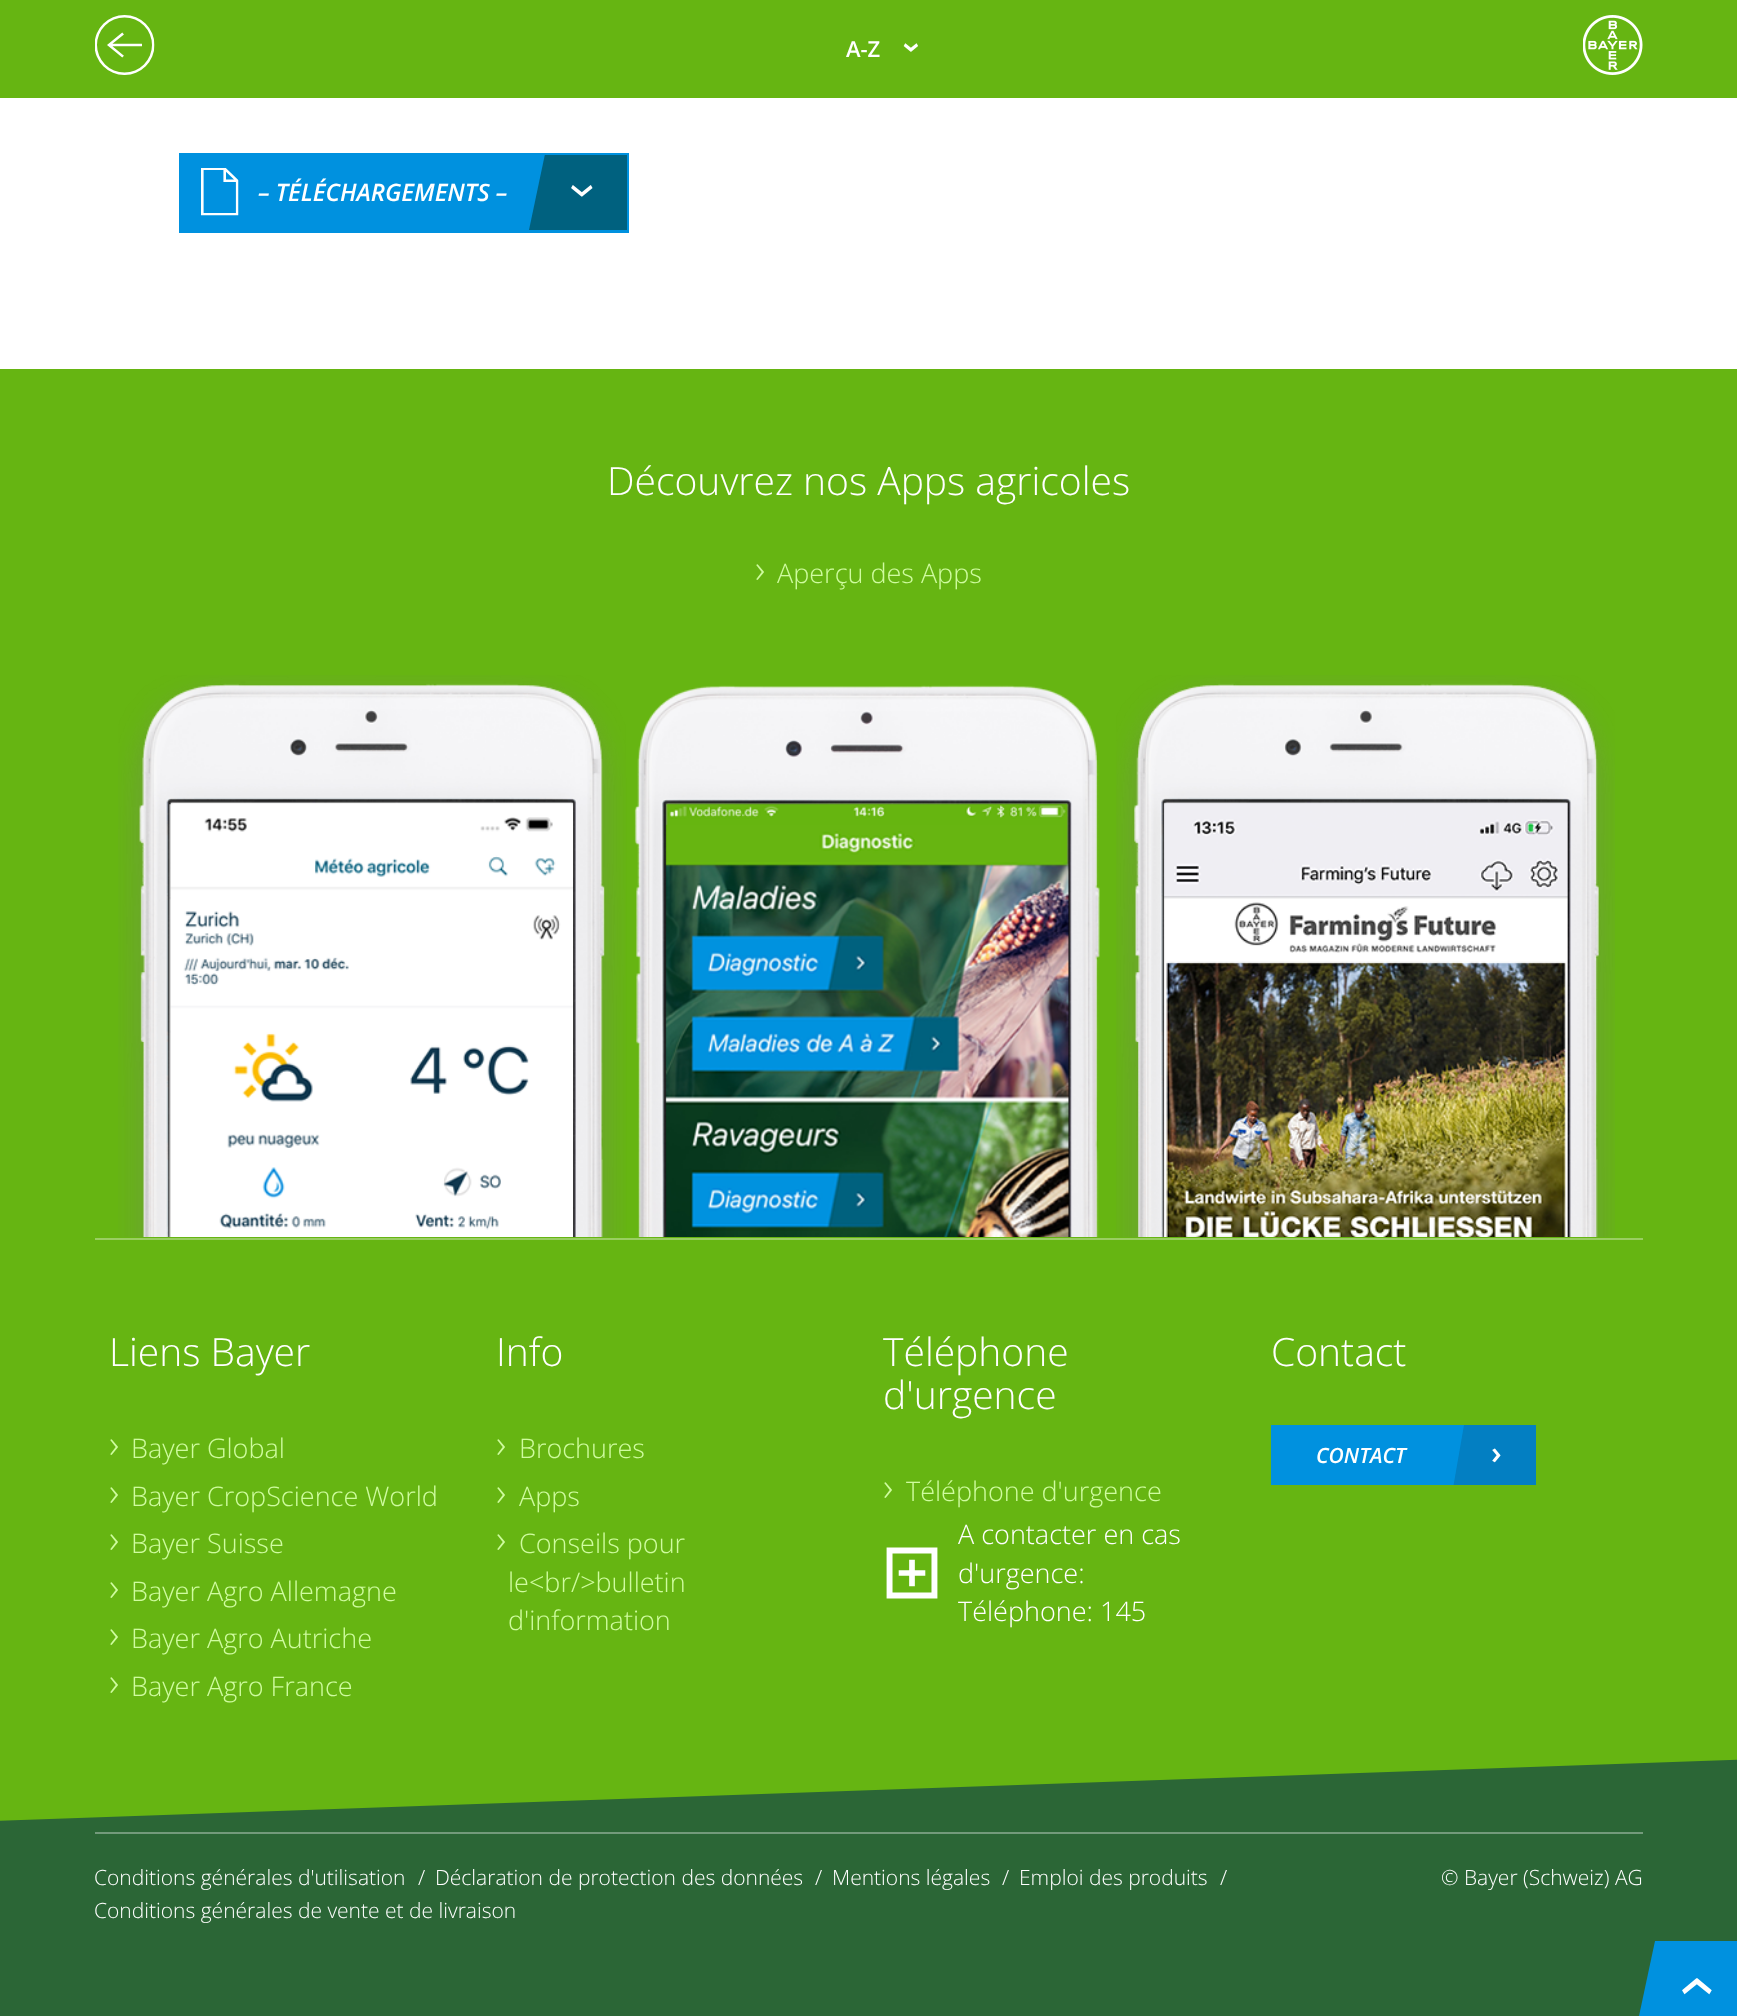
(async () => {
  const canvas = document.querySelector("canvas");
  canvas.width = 1737;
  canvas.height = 2016;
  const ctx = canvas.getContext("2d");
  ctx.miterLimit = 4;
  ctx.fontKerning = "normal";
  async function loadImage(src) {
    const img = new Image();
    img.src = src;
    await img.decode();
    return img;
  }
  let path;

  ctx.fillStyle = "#ffffff";
  ctx.fillRect(0, 0, 1737, 2016);
  ctx.fillStyle = "#66b512";
  ctx.fillRect(0, 0, 1737, 98);
  ctx.drawImage(await loadImage("img/1.png"), 95, 15, 60, 60);
  ctx.drawImage(await loadImage("img/2.png"), 1583, 15, 60, 60);
  ctx.fillStyle = "#0091df";
  ctx.fillRect(179, 153, 450, 80);
  ctx.drawImage(await loadImage("img/3.png"), 201, 168, 38, 48);
  ctx.save();
  ctx.beginPath();
  ctx.rect(180, 155, 447, 76);
  ctx.clip();
  ctx.fillStyle = "#00617f";
  path = new Path2D("M545 154H650L634 230H529Z");
  ctx.fill(path);
  ctx.restore();
  ctx.fillStyle = "#66b512";
  ctx.fillRect(0, 369, 1737, 1452);
  ctx.drawImage(await loadImage("img/4.png"), 118, 675, 1497, 562);
  ctx.fillStyle = "#9ace62";
  ctx.fillRect(95, 1238, 1548, 2);
  ctx.drawImage(await loadImage("img/5.png"), 886, 1547, 52, 52);
  ctx.fillStyle = "#0091df";
  ctx.fillRect(1271, 1425, 193, 60);
  ctx.save();
  ctx.beginPath();
  ctx.rect(1451, 1425, 85, 60);
  ctx.clip();
  ctx.fillStyle = "#037fc2";
  path = new Path2D("M1536 1500H1451L1464 1425H1536Z");
  ctx.fill(path);
  ctx.restore();
  ctx.fillStyle = "#2b6636";
  path = new Path2D("M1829 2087L-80 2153L-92 1824L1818 1757Z");
  ctx.fill(path);
  ctx.fillStyle = "#739a7b";
  ctx.fillRect(95, 1832, 1548, 2);
  ctx.fillStyle = "#0091df";
  path = new Path2D("M1655 1941H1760L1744 2016H1639Z");
  ctx.fill(path);
  ctx.font = "600 22px Open Sans";
  ctx.fillStyle = "#ffffff";
  ctx.fillText("A-Z", 846, 57);
  ctx.font = "600 33px Open Sans";
  ctx.save();
  ctx.translate(902, 42);
  ctx.rotate(90 * Math.PI / 180);
  ctx.fillText("›", 0, 0);
  ctx.restore();
  ctx.font = "italic 600 24px Open Sans";
  ctx.fillText("– TÉLÉCHARGEMENTS –", 258, 201);
  ctx.font = "52px Open Sans";
  ctx.save();
  ctx.translate(568, 183);
  ctx.rotate(90 * Math.PI / 180);
  ctx.fillText("›", 0, 0);
  ctx.restore();
  ctx.font = "300 39px Open Sans";
  ctx.fillText("Découvrez nos Apps agricoles", 607, 495);
  ctx.font = "300 40px Open Sans";
  ctx.fillStyle = "#cffc9f";
  ctx.fillText("›", 755, 583);
  ctx.font = "300 27px Open Sans";
  ctx.fillText("Aperçu des Apps", 777, 583);
  ctx.font = "300 39px Open Sans";
  ctx.fillStyle = "#ffffff";
  ctx.fillText("Liens Bayer", 109, 1366);
  ctx.font = "300 40px Open Sans";
  ctx.fillStyle = "#cffc9f";
  ctx.fillText("›", 109, 1458);
  ctx.font = "300 27px Open Sans";
  ctx.fillText("Bayer Global", 131, 1458);
  ctx.font = "300 40px Open Sans";
  ctx.fillText("›", 109, 1506);
  ctx.font = "300 27px Open Sans";
  ctx.fillText("Bayer CropScience World", 131, 1506);
  ctx.font = "300 40px Open Sans";
  ctx.fillText("›", 109, 1553);
  ctx.font = "300 27px Open Sans";
  ctx.fillText("Bayer Suisse", 131, 1553);
  ctx.font = "300 40px Open Sans";
  ctx.fillText("›", 109, 1601);
  ctx.font = "300 27px Open Sans";
  ctx.fillText("Bayer Agro Allemagne", 131, 1601);
  ctx.font = "300 40px Open Sans";
  ctx.fillText("›", 109, 1648);
  ctx.font = "300 27px Open Sans";
  ctx.fillText("Bayer Agro Autriche", 131, 1648);
  ctx.font = "300 40px Open Sans";
  ctx.fillText("›", 109, 1696);
  ctx.font = "300 27px Open Sans";
  ctx.fillText("Bayer Agro France", 131, 1696);
  ctx.font = "300 39px Open Sans";
  ctx.fillStyle = "#ffffff";
  ctx.fillText("Info", 496, 1366);
  ctx.font = "300 40px Open Sans";
  ctx.fillStyle = "#cffc9f";
  ctx.fillText("›", 496, 1458);
  ctx.font = "300 27px Open Sans";
  ctx.fillText("Brochures", 519, 1458);
  ctx.font = "300 40px Open Sans";
  ctx.fillText("›", 496, 1506);
  ctx.font = "300 27px Open Sans";
  ctx.fillText("Apps", 519, 1506);
  ctx.font = "300 40px Open Sans";
  ctx.fillText("›", 496, 1553);
  ctx.font = "300 27px Open Sans";
  for (const [text, x, y] of [
    ["Conseils pour", 519, 1553],
    ["le<br/>bulletin", 508, 1592],
    ["d'information", 508, 1630],
  ]) {
    ctx.fillText(text, x, y);
  }
  ctx.font = "300 39px Open Sans";
  ctx.fillStyle = "#ffffff";
  ctx.fillText("Téléphone", 883, 1366);
  ctx.fillText("d'urgence", 883, 1409);
  ctx.font = "300 40px Open Sans";
  ctx.fillStyle = "#cffc9f";
  ctx.fillText("›", 883, 1501);
  ctx.font = "300 27px Open Sans";
  ctx.fillText("Téléphone d'urgence", 906, 1501);
  ctx.fillStyle = "#ffffff";
  for (const [text, x, y] of [
    ["A contacter en cas", 958, 1544],
    ["d'urgence:", 958, 1583],
    ["Téléphone: 145", 958, 1621],
  ]) {
    ctx.fillText(text, x, y);
  }
  ctx.font = "300 39px Open Sans";
  ctx.fillText("Contact", 1271, 1366);
  ctx.font = "italic 600 21px Open Sans";
  ctx.fillText("CONTACT", 1316, 1463);
  ctx.font = "600 32px Open Sans";
  ctx.fillText("›", 1491, 1464);
  ctx.font = "300 21px Open Sans";
  for (const [text, x, y] of [
    ["Conditions générales d'utilisation", 94, 1885],
    ["/", 418, 1885],
    ["Déclaration de protection des données", 435, 1885],
    ["/", 815, 1885],
    ["Mentions légales", 832, 1885],
    ["/", 1002, 1885],
    ["Emploi des produits", 1019, 1885],
    ["/", 1220, 1885],
    ["Conditions générales de vente et de livraison", 94, 1918],
    ["© Bayer (Schweiz) AG", 1441, 1885],
  ]) {
    ctx.fillText(text, x, y);
  }
  ctx.font = "72px Open Sans";
  ctx.save();
  ctx.translate(1716, 1997);
  ctx.rotate(-90 * Math.PI / 180);
  ctx.fillText("›", 0, 0);
  ctx.restore();
})();
